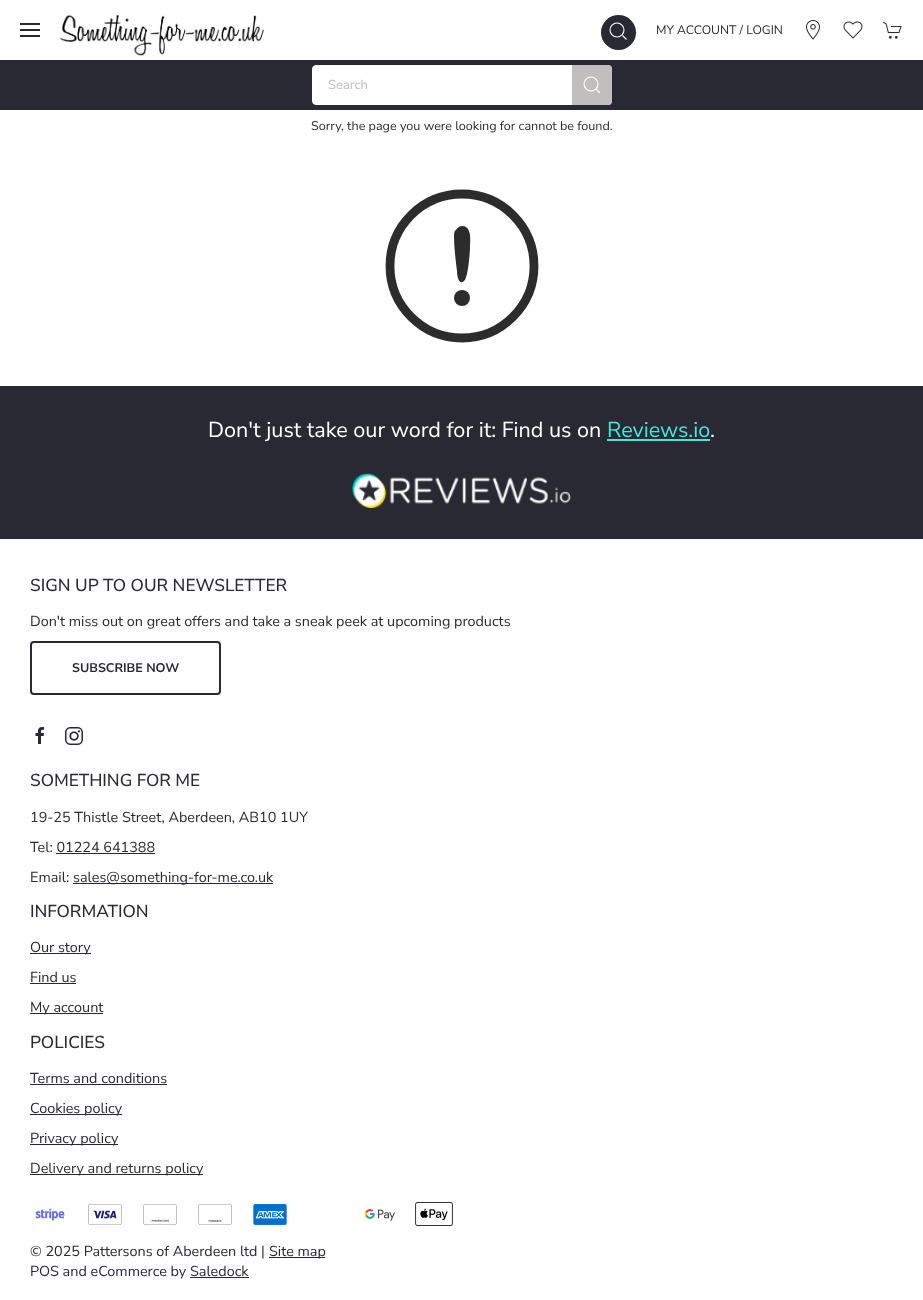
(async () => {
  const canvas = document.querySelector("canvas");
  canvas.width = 923;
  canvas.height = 1300;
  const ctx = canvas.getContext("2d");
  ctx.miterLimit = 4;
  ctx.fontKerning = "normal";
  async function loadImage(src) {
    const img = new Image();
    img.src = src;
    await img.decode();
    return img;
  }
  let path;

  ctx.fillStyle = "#ffffff";
  ctx.fillRect(0, 0, 923, 1300);
  for (const [x, y, w, h, color] of [
    [0, 60, 923, 50, "#292934"],
    [20, 23, 20, 2, "#292934"],
    [20, 29, 20, 2, "#292934"],
    [20, 35, 20, 2, "#292934"],
  ]) {
    ctx.fillStyle = color;
    ctx.fillRect(x, y, w, h);
  }
  ctx.drawImage(await loadImage("img/1.png"), 60, 14, 204, 42);
  ctx.beginPath();
  ctx.arc(618.5, 32.5, 17.5, 0, Math.PI * 2);
  ctx.fill();
  ctx.beginPath();
  ctx.arc(617, 30, 7, 0, Math.PI * 2);
  ctx.strokeStyle = "#ffffff";
  ctx.lineWidth = 1.1;
  ctx.stroke();
  path = new Path2D("M622.5 35.5L626.5 39.5Z");
  ctx.stroke(path);
  ctx.beginPath();
  ctx.arc(634.6, 32.6, 1.3, 0, Math.PI * 2);
  ctx.strokeStyle = "#292934";
  ctx.lineWidth = 0.2;
  ctx.stroke();
  ctx.drawImage(await loadImage("img/2.png"), 806, 20, 14, 20);
  ctx.drawImage(await loadImage("img/3.png"), 843, 21, 20, 18);
  ctx.drawImage(await loadImage("img/4.png"), 883, 21, 19, 18);
  ctx.fillStyle = "#ffffff";
  ctx.beginPath();
  ctx.roundRect(312.5, 65.5, 299, 39, 3.5);
  ctx.fill();
  ctx.strokeStyle = "#ffffff";
  ctx.lineWidth = 1;
  ctx.stroke();
  ctx.fillStyle = "#c0bfbe";
  ctx.beginPath();
  ctx.roundRect(572, 65, 40, 40, [0, 4, 4, 0]);
  ctx.fill();
  ctx.beginPath();
  ctx.arc(591, 84, 7, 0, Math.PI * 2);
  ctx.lineWidth = 1.1;
  ctx.stroke();
  path = new Path2D("M596 89L600 93Z");
  ctx.stroke(path);
  ctx.fillStyle = "#2c2c2c";
  ctx.beginPath();
  ctx.arc(462, 298, 8, 0, Math.PI * 2);
  ctx.fill();
  ctx.beginPath();
  ctx.arc(462, 266, 72, 0, Math.PI * 2);
  ctx.strokeStyle = "#2c2c2c";
  ctx.lineWidth = 8.8;
  ctx.stroke();
  path = new Path2D("M470 248C470 252 468 279 464 281C458 286 457 274 457 271L456 263C455 254 454 245 454 236C454 234 454 231 456 230C459 224 467 225 469 231C471 236 470 243 470 248Z");
  ctx.fill(path);
  ctx.fillStyle = "#292934";
  ctx.fillRect(0, 386, 923, 153);
  ctx.fillStyle = "#46e6d9";
  ctx.fillRect(607, 439, 103, 2);
  ctx.drawImage(await loadImage("img/5.png"), 352, 473, 219, 36);
  ctx.fillStyle = "#fbfbfb";
  ctx.fillRect(0, 539, 923, 2);
  ctx.beginPath();
  ctx.roundRect(31, 642, 189, 52, 3);
  ctx.strokeStyle = "#292934";
  ctx.lineWidth = 2;
  ctx.stroke();
  ctx.drawImage(await loadImage("img/6.png"), 35, 727, 9, 17);
  ctx.drawImage(await loadImage("img/7.png"), 65, 727, 18, 18);
  for (const [x, y, w, h, color] of [
    [56, 853, 99, 1, "#292934"],
    [73, 883, 200, 1, "#292934"],
    [30, 953, 61, 1, "#292934"],
    [30, 983, 46, 1, "#292934"],
    [30, 1013, 73, 1, "#292934"],
    [30, 1084, 137, 1, "#292934"],
    [30, 1114, 92, 1, "#292934"],
    [30, 1144, 88, 1, "#292934"],
    [30, 1174, 173, 1, "#292934"],
  ]) {
    ctx.fillStyle = color;
    ctx.fillRect(x, y, w, h);
  }
  ctx.drawImage(await loadImage("img/8.png"), 35, 1208, 30, 13);
  ctx.drawImage(await loadImage("img/9.png"), 88, 1204, 34, 21);
  ctx.drawImage(await loadImage("img/10.png"), 143, 1204, 34, 21);
  ctx.drawImage(await loadImage("img/11.png"), 198, 1204, 34, 21);
  ctx.drawImage(await loadImage("img/12.png"), 253, 1204, 34, 21);
  ctx.drawImage(await loadImage("img/13.png"), 365, 1209, 30, 12);
  ctx.drawImage(await loadImage("img/14.png"), 415, 1202, 38, 24);
  ctx.fillRect(269, 1257, 56, 1);
  ctx.fillRect(190, 1277, 59, 1);
  ctx.font = "12.25px Nunito Sans";
  ctx.fillText("MY ACCOUNT / LOGIN", 656, 34);
  ctx.font = "13px Nunito Sans";
  ctx.fillStyle = "#c0bfbe";
  ctx.fillText("Search", 328, 89);
  ctx.font = "12.6px Nunito Sans";
  ctx.fillStyle = "#2c2c2c";
  ctx.fillText("Sorry, the page you were looking for cannot be found.", 311, 130);
  ctx.font = "21.6px Nunito Sans";
  ctx.fillStyle = "#ffffff";
  ctx.fillText("Don't just take our word for it: Find us on", 208, 437);
  ctx.fillStyle = "#46e6d9";
  ctx.fillText("Reviews.io", 607, 437);
  ctx.fillStyle = "#ffffff";
  ctx.fillText(".", 710, 437);
  ctx.font = "500 17.25px Nunito Sans";
  ctx.fillStyle = "#292934";
  ctx.fillText("SIGN UP TO OUR NEWSLETTER", 30, 591);
  ctx.font = "14.4px Nunito Sans";
  ctx.fillText("Don't miss out on great offers and take a sneak peek at upcoming products", 30, 626);
  ctx.font = "bold 12.6px Nunito Sans";
  ctx.fillText("SUBSCRIBE NOW", 72, 672);
  ctx.font = "500 17.25px Nunito Sans";
  ctx.fillText("SOMETHING FOR ME", 30, 786);
  ctx.font = "14.4px Nunito Sans";
  for (const [text, x, y] of [
    ["19-25 Thistle Street, Aberdeen, AB10 1UY", 30, 822],
    ["Tel: 01224 641388", 30, 852],
    ["Email:", 30, 882],
    ["sales@something-for-me.co.uk", 73, 882],
  ]) {
    ctx.fillText(text, x, y);
  }
  ctx.font = "500 17.25px Nunito Sans";
  ctx.fillText("INFORMATION", 30, 917);
  ctx.font = "14.4px Nunito Sans";
  for (const [text, x, y] of [
    ["Our story", 30, 952],
    ["Find us", 30, 982],
    ["My account", 30, 1012],
  ]) {
    ctx.fillText(text, x, y);
  }
  ctx.font = "500 17.25px Nunito Sans";
  ctx.fillText("POLICIES", 30, 1048);
  ctx.font = "14.4px Nunito Sans";
  for (const [text, x, y] of [
    ["Terms and conditions", 30, 1083],
    ["Cookies policy", 30, 1113],
    ["Privacy policy", 30, 1143],
    ["Delivery and returns policy", 30, 1173],
    ["© 2025 Pattersons of Aberdeen ltd |", 30, 1256],
    ["Site map", 269, 1256],
    ["POS and eCommerce by Saledock", 30, 1276],
  ]) {
    ctx.fillText(text, x, y);
  }
})();
